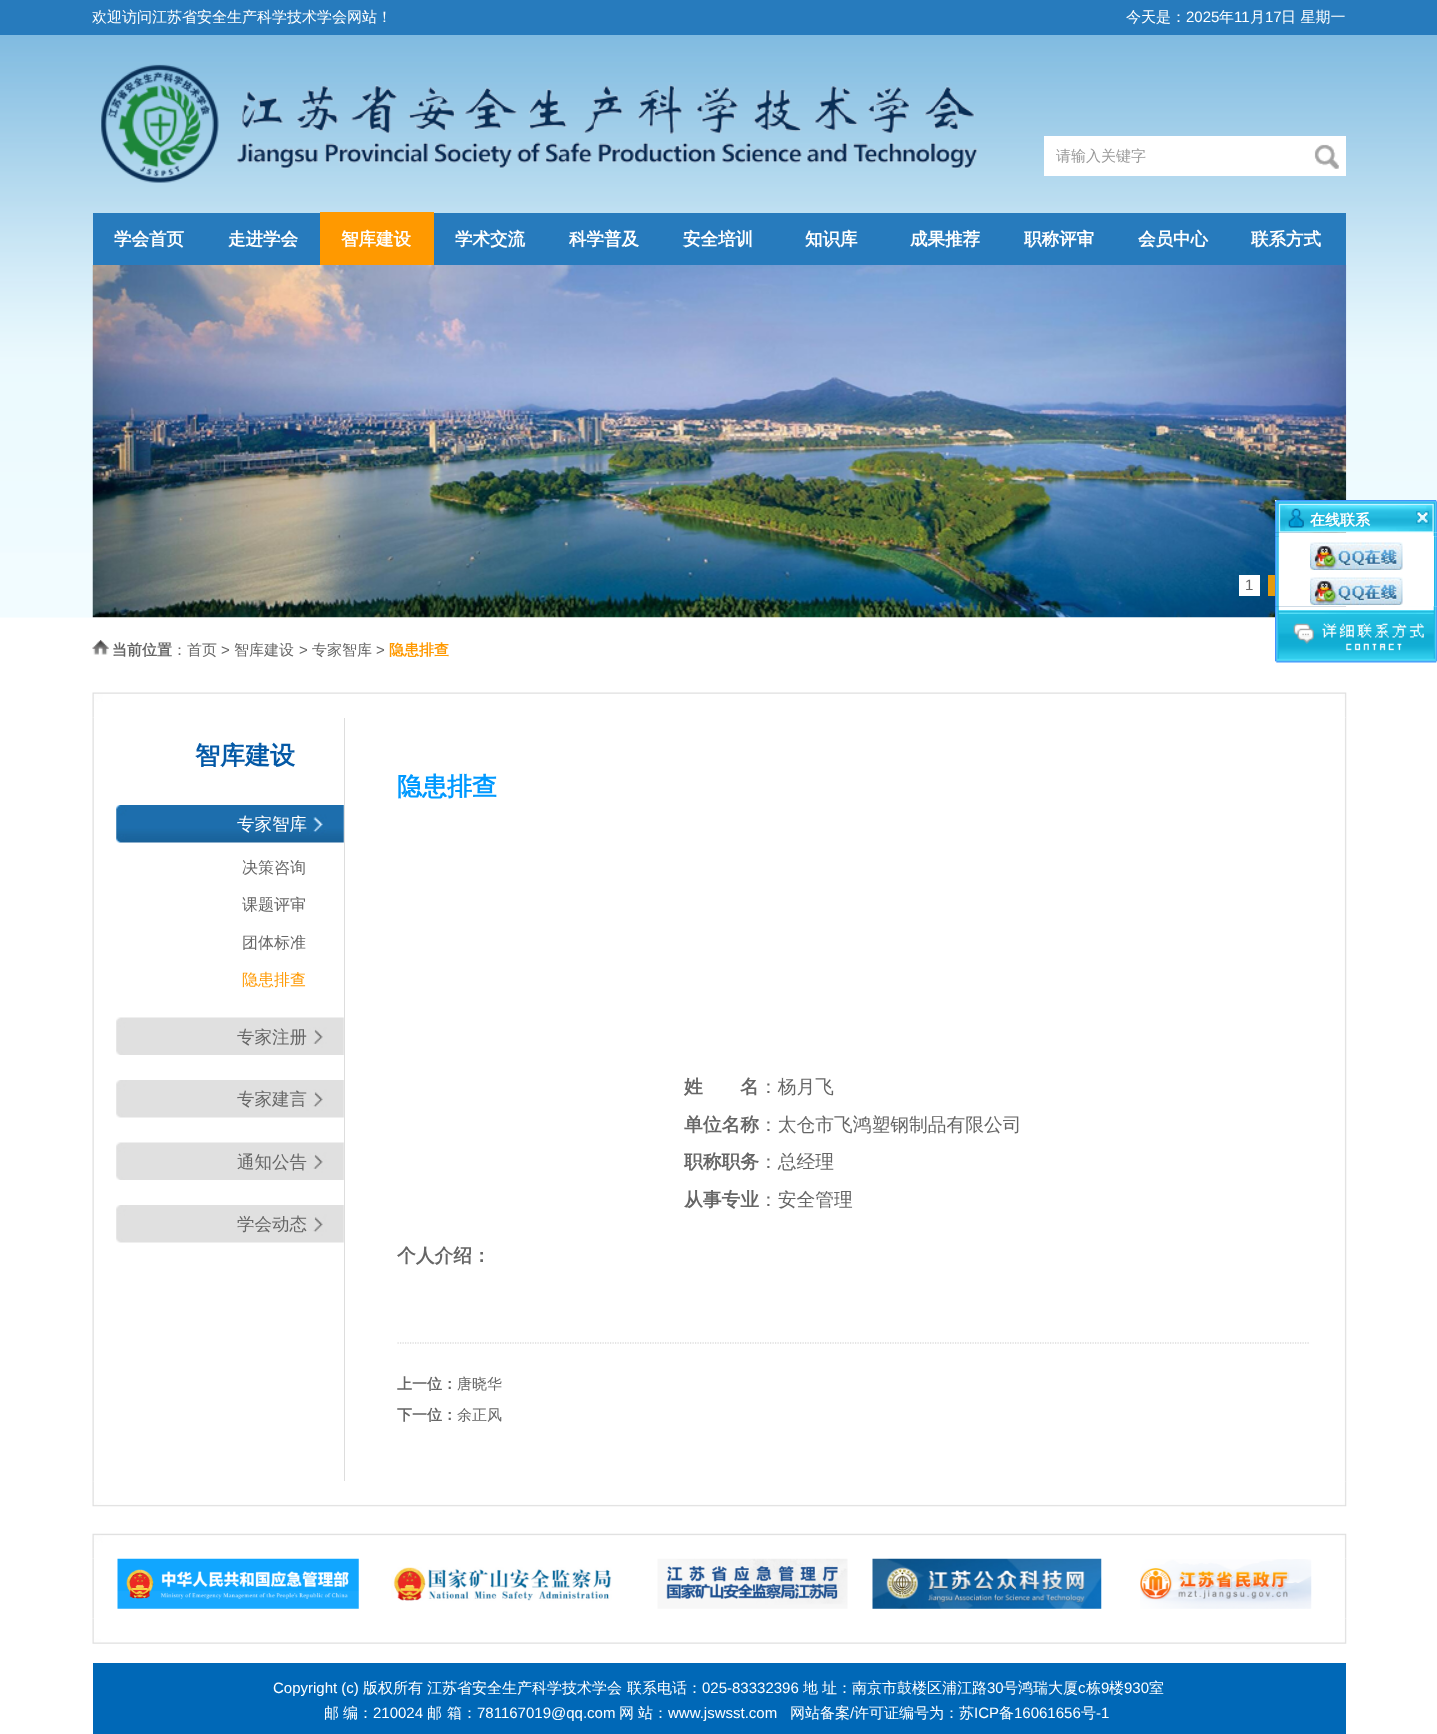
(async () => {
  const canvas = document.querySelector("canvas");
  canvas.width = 1437;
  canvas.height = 1734;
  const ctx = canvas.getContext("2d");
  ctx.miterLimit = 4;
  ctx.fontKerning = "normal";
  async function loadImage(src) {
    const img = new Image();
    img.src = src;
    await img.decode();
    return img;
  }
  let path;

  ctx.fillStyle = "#ffffff";
  ctx.fillRect(0, 0, 1437, 1734);
  ctx.fillStyle = "#277bbd";
  ctx.fillRect(0, 0, 1437, 35);
  ctx.drawImage(await loadImage("img/1.png"), 0, 35, 1437, 583);
  ctx.drawImage(await loadImage("img/2.png"), 101, 64, 877, 119);
  ctx.fillStyle = "#ffffff";
  ctx.fillRect(1044, 136, 302, 40);
  ctx.drawImage(await loadImage("img/3.png"), 1314, 144, 25, 25);
  for (const [x, y, w, h, color] of [
    [93, 213, 1253, 52, "#277bbd"],
    [320, 212, 114, 53, "#ff9900"],
    [93, 617, 1182, 1, "#ffffff"],
  ]) {
    ctx.fillStyle = color;
    ctx.fillRect(x, y, w, h);
  }
  ctx.drawImage(await loadImage("img/4.png"), 92, 265, 1255, 353);
  ctx.fillRect(1239, 575, 21, 21);
  ctx.fillStyle = "#e49b0d";
  ctx.fillRect(1268, 575, 7, 21);
  ctx.drawImage(await loadImage("img/5.png"), 1275, 500, 162, 33);
  ctx.drawImage(await loadImage("img/6.png"), 1416, 511, 13, 13);
  ctx.drawImage(await loadImage("img/7.png"), 1275, 532, 162, 5);
  ctx.drawImage(await loadImage("img/8.png"), 1275, 536, 162, 71);
  ctx.fillStyle = "#ffffff";
  ctx.fillRect(1279, 536, 155, 35);
  ctx.drawImage(await loadImage("img/9.png"), 1310, 542, 93, 28);
  ctx.fillRect(1433, 571, 1, 35);
  ctx.drawImage(await loadImage("img/10.png"), 1310, 577, 93, 28);
  ctx.drawImage(await loadImage("img/11.png"), 1275, 606, 162, 4);
  ctx.drawImage(await loadImage("img/12.png"), 1275, 610, 162, 53);
  ctx.drawImage(await loadImage("img/13.png"), 92, 640, 17, 15);
  ctx.drawImage(await loadImage("img/14.png"), 92, 692, 1255, 26);
  ctx.drawImage(await loadImage("img/15.png"), 92, 717, 1255, 765);
  ctx.fillStyle = "#dddddd";
  ctx.fillRect(344, 718, 1, 763);
  ctx.drawImage(await loadImage("img/16.png"), 116, 805, 228, 38);
  ctx.drawImage(await loadImage("img/17.png"), 116, 1017, 228, 38);
  ctx.drawImage(await loadImage("img/18.png"), 116, 1080, 228, 38);
  ctx.drawImage(await loadImage("img/19.png"), 116, 1142, 228, 38);
  ctx.drawImage(await loadImage("img/18.png"), 116, 1205, 228, 38);
  path = new Path2D("M397.5 1343H1309");
  ctx.strokeStyle = "#cccccc";
  ctx.lineWidth = 1.2;
  ctx.setLineDash([1.25, 1.25]);
  ctx.stroke(path);
  ctx.drawImage(await loadImage("img/20.png"), 92, 1481, 1255, 26);
  ctx.drawImage(await loadImage("img/21.png"), 92, 1533, 1255, 26);
  ctx.drawImage(await loadImage("img/22.png"), 92, 1559, 1255, 60);
  ctx.drawImage(await loadImage("img/23.png"), 117, 1558, 242, 51);
  ctx.drawImage(await loadImage("img/24.png"), 391, 1567, 221, 34);
  ctx.drawImage(await loadImage("img/25.png"), 657, 1558, 191, 51);
  ctx.drawImage(await loadImage("img/26.png"), 872, 1558, 230, 51);
  ctx.drawImage(await loadImage("img/27.png"), 1140, 1559, 172, 50);
  ctx.drawImage(await loadImage("img/28.png"), 92, 1619, 1255, 25);
  ctx.fillStyle = "#0068b7";
  ctx.fillRect(93, 1663, 1253, 71);
  ctx.font = "500 15px WenQuanYi Zen Hei";
  ctx.fillStyle = "#ffffff";
  ctx.fillText("欢迎访问江苏省安全生产科学技术学会网站！", 92, 22);
  ctx.fillText("今天是：", 1126, 22);
  ctx.font = "15px Liberation Sans";
  ctx.fillText("2025", 1186, 22);
  ctx.font = "500 15px WenQuanYi Zen Hei";
  ctx.fillText("年", 1219, 22);
  ctx.font = "15px Liberation Sans";
  ctx.fillText("11", 1234, 22);
  ctx.font = "500 15px WenQuanYi Zen Hei";
  ctx.fillText("月", 1250, 22);
  ctx.font = "15px Liberation Sans";
  ctx.fillText("17", 1265, 22);
  ctx.font = "500 15px WenQuanYi Zen Hei";
  ctx.fillText("日 星期一", 1281, 22);
  ctx.fillStyle = "#999999";
  ctx.fillText("请输入关键字", 1056, 161);
  ctx.font = "bold 17.5px WenQuanYi Zen Hei";
  ctx.fillStyle = "#ffffff";
  for (const [text, x, y] of [
    ["学会首页", 114, 245],
    ["走进学会", 228, 245],
    ["智库建设", 341, 245],
    ["学术交流", 455, 245],
    ["科学普及", 569, 245],
    ["安全培训", 683, 245],
    ["知识库", 805, 245],
    ["成果推荐", 910, 245],
    ["职称评审", 1024, 245],
    ["会员中心", 1138, 245],
    ["联系方式", 1251, 245],
  ]) {
    ctx.fillText(text, x, y);
  }
  ctx.font = "15px Liberation Sans";
  ctx.fillStyle = "#666666";
  ctx.fillText("1", 1245, 590);
  ctx.font = "bold 15px WenQuanYi Zen Hei";
  ctx.fillStyle = "#ffffff";
  ctx.fillText("在线联系", 1310, 525);
  ctx.fillStyle = "#666666";
  ctx.fillText("当前位置", 112, 655);
  ctx.font = "500 15px WenQuanYi Zen Hei";
  ctx.fillText("：首页", 172, 655);
  ctx.font = "15px Liberation Sans";
  ctx.fillText(">", 221, 655);
  ctx.font = "500 15px WenQuanYi Zen Hei";
  ctx.fillText("智库建设", 234, 655);
  ctx.font = "15px Liberation Sans";
  ctx.fillText(">", 299, 655);
  ctx.font = "500 15px WenQuanYi Zen Hei";
  ctx.fillText("专家智库", 312, 655);
  ctx.font = "15px Liberation Sans";
  ctx.fillText(">", 376, 655);
  ctx.font = "bold 15px WenQuanYi Zen Hei";
  ctx.fillStyle = "#ff9900";
  ctx.fillText("隐患排查", 389, 655);
  ctx.font = "bold 25px WenQuanYi Zen Hei";
  ctx.fillStyle = "#0459a6";
  ctx.fillText("智库建设", 195, 764);
  ctx.font = "500 17.5px WenQuanYi Zen Hei";
  ctx.fillStyle = "#ffffff";
  ctx.fillText("专家智库", 237, 830);
  ctx.font = "500 16px WenQuanYi Zen Hei";
  ctx.fillStyle = "#666666";
  for (const [text, x, y] of [
    ["决策咨询", 242, 873],
    ["课题评审", 242, 910],
    ["团体标准", 242, 948],
  ]) {
    ctx.fillText(text, x, y);
  }
  ctx.fillStyle = "#ff9900";
  ctx.fillText("隐患排查", 242, 985);
  ctx.font = "500 17.5px WenQuanYi Zen Hei";
  ctx.fillStyle = "#666666";
  for (const [text, x, y] of [
    ["专家注册", 237, 1043],
    ["专家建言", 237, 1105],
    ["通知公告", 237, 1168],
    ["学会动态", 237, 1230],
  ]) {
    ctx.fillText(text, x, y);
  }
  ctx.font = "bold 25px WenQuanYi Zen Hei";
  ctx.fillStyle = "#0099ff";
  ctx.fillText("隐患排查", 397, 795);
  ctx.font = "bold 18.75px WenQuanYi Zen Hei";
  ctx.fillStyle = "#666666";
  ctx.fillText("姓", 684, 1093);
  ctx.fillText("名", 740, 1093);
  ctx.font = "500 18.75px WenQuanYi Zen Hei";
  ctx.fillText("：杨月飞", 759, 1093);
  ctx.font = "bold 18.75px WenQuanYi Zen Hei";
  ctx.fillText("单位名称", 684, 1131);
  ctx.font = "500 18.75px WenQuanYi Zen Hei";
  ctx.fillText("：太仓市飞鸿塑钢制品有限公司", 759, 1131);
  ctx.font = "bold 18.75px WenQuanYi Zen Hei";
  ctx.fillText("职称职务", 684, 1168);
  ctx.font = "500 18.75px WenQuanYi Zen Hei";
  ctx.fillText("：总经理", 759, 1168);
  ctx.font = "bold 18.75px WenQuanYi Zen Hei";
  ctx.fillText("从事专业", 684, 1206);
  ctx.font = "500 18.75px WenQuanYi Zen Hei";
  ctx.fillText("：安全管理", 759, 1206);
  ctx.font = "bold 18.75px WenQuanYi Zen Hei";
  ctx.fillText("个人介绍：", 397, 1262);
  ctx.font = "bold 15px WenQuanYi Zen Hei";
  ctx.fillText("上一位：", 397, 1389);
  ctx.font = "500 15px WenQuanYi Zen Hei";
  ctx.fillText("唐晓华", 457, 1389);
  ctx.font = "bold 15px WenQuanYi Zen Hei";
  ctx.fillText("下一位：", 397, 1420);
  ctx.font = "500 15px WenQuanYi Zen Hei";
  ctx.fillText("余正风", 457, 1420);
  ctx.font = "15px Liberation Sans";
  ctx.fillStyle = "#ffffff";
  ctx.fillText("Copyright (c)", 273, 1693);
  ctx.font = "500 15px WenQuanYi Zen Hei";
  for (const [text, x, y] of [
    ["版权所有", 363, 1693],
    ["江苏省安全生产科学技术学会", 427, 1693],
    ["联系电话：", 627, 1693],
  ]) {
    ctx.fillText(text, x, y);
  }
  ctx.font = "15px Liberation Sans";
  ctx.fillText("025-83332396", 702, 1693);
  ctx.font = "500 15px WenQuanYi Zen Hei";
  ctx.fillText("地", 803, 1693);
  ctx.fillText("址：南京市鼓楼区浦江路", 822, 1693);
  ctx.font = "15px Liberation Sans";
  ctx.fillText("30", 987, 1693);
  ctx.font = "500 15px WenQuanYi Zen Hei";
  ctx.fillText("号鸿瑞大厦", 1003, 1693);
  ctx.font = "15px Liberation Sans";
  ctx.fillText("c", 1078, 1693);
  ctx.font = "500 15px WenQuanYi Zen Hei";
  ctx.fillText("栋", 1086, 1693);
  ctx.font = "15px Liberation Sans";
  ctx.fillText("9", 1101, 1693);
  ctx.font = "500 15px WenQuanYi Zen Hei";
  ctx.fillText("楼", 1109, 1693);
  ctx.font = "15px Liberation Sans";
  ctx.fillText("930", 1124, 1693);
  ctx.font = "500 15px WenQuanYi Zen Hei";
  for (const [text, x, y] of [
    ["室", 1149, 1693],
    ["邮", 324, 1718],
    ["编：", 343, 1718],
  ]) {
    ctx.fillText(text, x, y);
  }
  ctx.font = "15px Liberation Sans";
  ctx.fillText("210024", 373, 1718);
  ctx.font = "500 15px WenQuanYi Zen Hei";
  ctx.fillText("邮", 427, 1718);
  ctx.fillText("箱：", 447, 1718);
  ctx.font = "15px Liberation Sans";
  ctx.fillText("781167019@qq.com", 477, 1718);
  ctx.font = "500 15px WenQuanYi Zen Hei";
  ctx.fillText("网", 619, 1718);
  ctx.fillText("站：", 638, 1718);
  ctx.font = "15px Liberation Sans";
  ctx.fillText("www.jswsst.com", 668, 1718);
  ctx.font = "500 15px WenQuanYi Zen Hei";
  ctx.fillText("网站备案", 790, 1718);
  ctx.font = "15px Liberation Sans";
  ctx.fillText("/", 850, 1718);
  ctx.font = "500 15px WenQuanYi Zen Hei";
  ctx.fillText("许可证编号为：苏", 854, 1718);
  ctx.font = "15px Liberation Sans";
  ctx.fillText("ICP", 974, 1718);
  ctx.font = "500 15px WenQuanYi Zen Hei";
  ctx.fillText("备", 999, 1718);
  ctx.font = "15px Liberation Sans";
  ctx.fillText("16061656", 1014, 1718);
  ctx.font = "500 15px WenQuanYi Zen Hei";
  ctx.fillText("号", 1081, 1718);
  ctx.font = "15px Liberation Sans";
  ctx.fillText("-1", 1096, 1718);
})();
